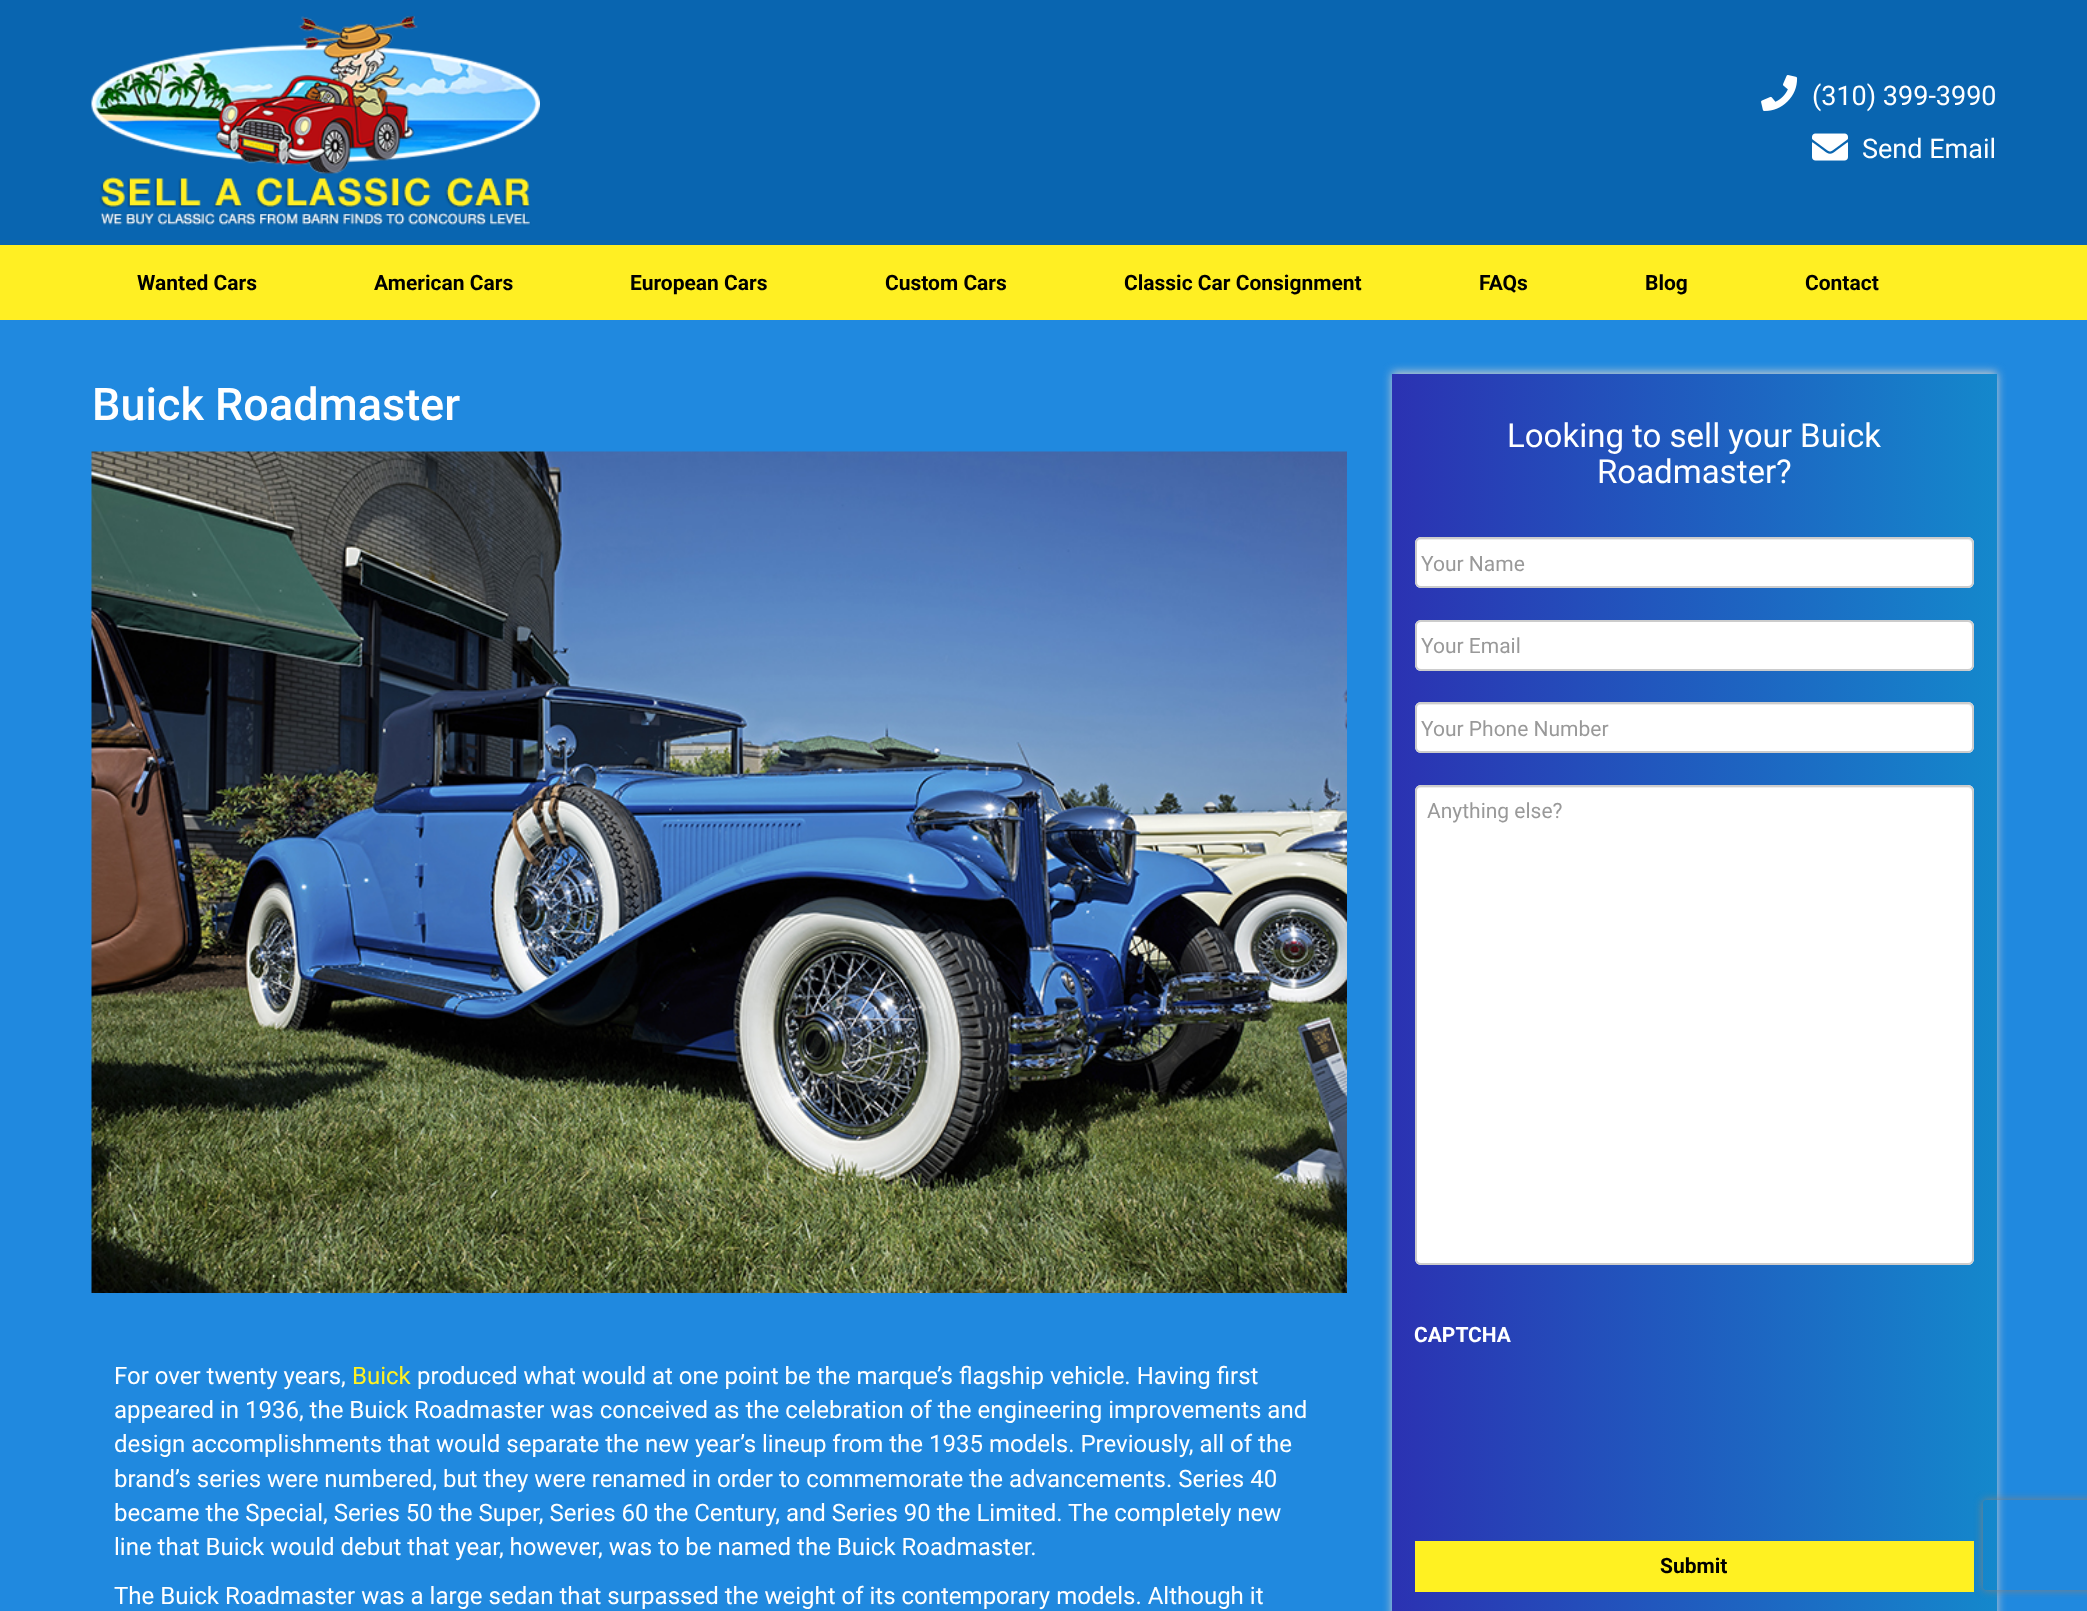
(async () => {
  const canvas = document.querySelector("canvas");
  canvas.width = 2087;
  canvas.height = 1611;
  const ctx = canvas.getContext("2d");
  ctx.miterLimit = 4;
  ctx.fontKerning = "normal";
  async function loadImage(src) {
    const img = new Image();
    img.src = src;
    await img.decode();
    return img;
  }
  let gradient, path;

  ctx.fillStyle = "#0965b0";
  ctx.fillRect(0, 0, 2087, 1611);
  ctx.drawImage(await loadImage("img/1.png"), 91, 16, 449, 210);
  ctx.drawImage(await loadImage("img/2.png"), 1761, 75, 37, 36);
  ctx.drawImage(await loadImage("img/3.png"), 1812, 133, 36, 28);
  ctx.fillStyle = "#ffef23";
  ctx.fillRect(0, 245, 2087, 75);
  ctx.fillStyle = "#2089df";
  ctx.fillRect(0, 320, 2087, 1291);
  ctx.drawImage(await loadImage("img/4.png"), 91, 451, 1256, 842);
  ctx.fillStyle = "#cccccc";
  ctx.filter = "blur(5px)";
  ctx.beginPath();
  ctx.rect(1392, 372, 605, 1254);
  ctx.fill();
  ctx.filter = "none";
  gradient = ctx.createLinearGradient(1392, 1005, 1997, 1005);
  gradient.addColorStop(0, "#2b32b2");
  gradient.addColorStop(1, "#1488cc");
  ctx.fillStyle = gradient;
  ctx.fillRect(1392, 374, 605, 1237);
  ctx.fillStyle = "#ffffff";
  ctx.beginPath();
  ctx.roundRect(1415, 537, 559, 51, 6);
  ctx.fill();
  ctx.fillStyle = "#ececec";
  path = new Path2D("M1420 540H1968C1970 540 1972 542 1972 544V585C1973 584 1973 583 1973 582V544C1973 541 1971 539 1968 539H1421C1418 539 1416 541 1416 544C1416 542 1418 540 1420 540Z");
  ctx.fill(path);
  ctx.beginPath();
  ctx.roundRect(1416, 538, 557, 49, 5);
  ctx.strokeStyle = "#cccccc";
  ctx.lineWidth = 2;
  ctx.stroke();
  ctx.fillStyle = "#ffffff";
  ctx.beginPath();
  ctx.roundRect(1415, 620, 559, 51, 6);
  ctx.fill();
  ctx.fillStyle = "#ececec";
  path = new Path2D("M1420 622H1968C1970 622 1972 625 1972 627V667C1973 666 1973 665 1973 664V626C1973 623 1971 621 1968 621H1421C1418 621 1416 623 1416 626V627C1416 625 1418 622 1420 622Z");
  ctx.fill(path);
  ctx.beginPath();
  ctx.roundRect(1416, 621, 557, 49, 5);
  ctx.stroke();
  ctx.fillStyle = "#ffffff";
  ctx.beginPath();
  ctx.roundRect(1415, 702, 559, 51, 6);
  ctx.fill();
  ctx.fillStyle = "#ececec";
  path = new Path2D("M1420 705H1968C1970 705 1972 707 1972 710V748L1971 751C1972 750 1973 748 1973 747V709C1973 706 1971 704 1968 704H1421C1418 704 1416 706 1416 709V710C1416 707 1418 705 1420 705Z");
  ctx.fill(path);
  ctx.beginPath();
  ctx.roundRect(1416, 703, 557, 49, 5);
  ctx.stroke();
  ctx.fillStyle = "#ffffff";
  ctx.beginPath();
  ctx.roundRect(1415, 785, 559, 480, 6);
  ctx.fill();
  ctx.fillStyle = "#ececec";
  path = new Path2D("M1420 788H1968C1970 788 1972 790 1972 792V1261C1973 1260 1973 1259 1973 1258V791C1973 788 1971 786 1968 786H1421C1418 786 1416 788 1416 791V792C1416 790 1418 788 1420 788Z");
  ctx.fill(path);
  ctx.beginPath();
  ctx.roundRect(1416, 786, 557, 478, 5);
  ctx.stroke();
  ctx.fillStyle = "#fff122";
  ctx.fillRect(1415, 1541, 559, 51);
  ctx.save();
  path = new Path2D("M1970 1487H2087V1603H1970ZM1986 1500H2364C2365.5 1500 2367 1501.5 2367 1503V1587C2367 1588.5 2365.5 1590 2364 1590H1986C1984.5 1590 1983 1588.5 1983 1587V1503C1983 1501.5 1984.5 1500 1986 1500Z");
  ctx.clip(path, "evenodd");
  ctx.fillStyle = "#808080";
  ctx.filter = "blur(4px)";
  ctx.beginPath();
  ctx.roundRect(1983, 1500, 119, 90, 3);
  ctx.fill();
  ctx.filter = "none";
  ctx.restore();
  ctx.font = "27px Roboto";
  ctx.fillStyle = "#ffffff";
  ctx.fillText("(310) 399-3990", 1812, 105);
  ctx.fillText("Send Email", 1862, 158);
  ctx.font = "bold 21px Roboto";
  ctx.fillStyle = "#000000";
  for (const [text, x, y] of [
    ["Wanted Cars", 137, 290],
    ["American Cars", 374, 290],
    ["European Cars", 630, 290],
    ["Custom Cars", 885, 290],
    ["Classic Car Consignment", 1124, 290],
    ["FAQs", 1479, 290],
    ["Blog", 1645, 290],
    ["Contact", 1805, 290],
  ]) {
    ctx.fillText(text, x, y);
  }
  ctx.font = "500 45px Roboto";
  ctx.fillStyle = "#ffffff";
  ctx.fillText("Buick Roadmaster", 92, 420);
  ctx.font = "24px Roboto";
  ctx.fillText("For over twenty years,", 114, 1384);
  ctx.fillStyle = "#fff122";
  ctx.fillText("Buick", 352, 1384);
  ctx.fillStyle = "#ffffff";
  for (const [text, x, y] of [
    ["produced what would at one point be the marque’s flagship vehicle. Having first", 417, 1384],
    ["appeared in 1936, the Buick Roadmaster was conceived as the celebration of the engineering improvements and", 114, 1418],
    ["design accomplishments that would separate the new year’s lineup from the 1935 models. Previously, all of the", 114, 1452],
    ["brand’s series were numbered, but they were renamed in order to commemorate the advancements. Series 40", 114, 1487],
    ["became the Special, Series 50 the Super, Series 60 the Century, and Series 90 the Limited. The completely new", 114, 1521],
    ["line that Buick would debut that year, however, was to be named the Buick Roadmaster.", 114, 1555],
    ["The Buick Roadmaster was a large sedan that surpassed the weight of its contemporary models. Although it", 114, 1604],
  ]) {
    ctx.fillText(text, x, y);
  }
  ctx.font = "33px Roboto";
  ctx.fillText("Looking to sell your Buick", 1507, 447);
  ctx.fillText("Roadmaster?", 1597, 483);
  ctx.font = "21px Roboto";
  ctx.fillStyle = "#999999";
  for (const [text, x, y] of [
    ["Your Name", 1421, 571],
    ["Your Email", 1421, 653],
    ["Your Phone Number", 1421, 736],
    ["Anything else?", 1427, 818],
  ]) {
    ctx.fillText(text, x, y);
  }
  ctx.font = "bold 21px Roboto";
  ctx.fillStyle = "#ffffff";
  ctx.fillText("CAPTCHA", 1414, 1342);
  ctx.fillStyle = "#000000";
  ctx.fillText("Submit", 1660, 1573);
})();
